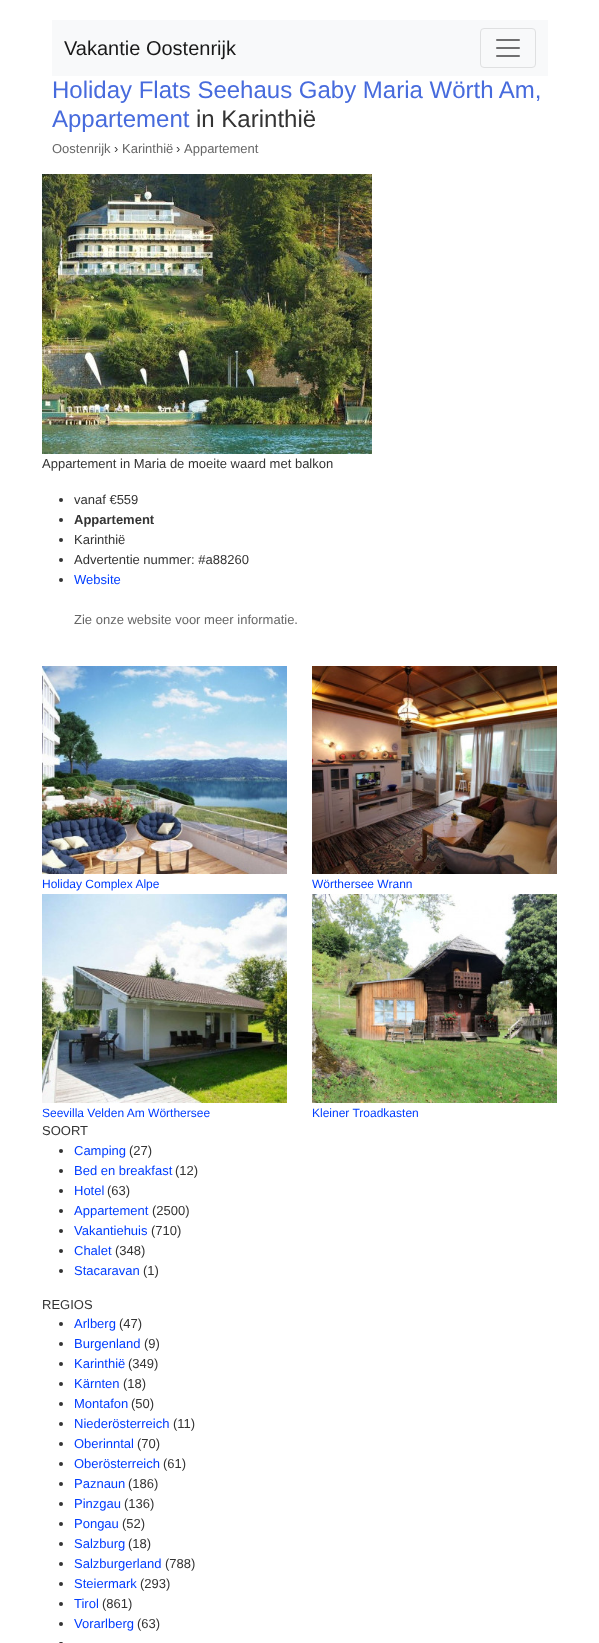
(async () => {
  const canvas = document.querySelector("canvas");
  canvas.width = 599;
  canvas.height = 1643;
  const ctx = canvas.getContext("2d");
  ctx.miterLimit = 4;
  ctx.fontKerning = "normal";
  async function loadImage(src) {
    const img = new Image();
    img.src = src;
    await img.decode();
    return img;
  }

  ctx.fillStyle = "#ffffff";
  ctx.fillRect(0, 0, 599, 1643);
  ctx.fillStyle = "#f8f9fa";
  ctx.fillRect(52, 20, 496, 56);
  ctx.beginPath();
  ctx.roundRect(480.5, 28.5, 55, 39, 3.5);
  ctx.strokeStyle = "#dfe0e1";
  ctx.stroke();
  ctx.drawImage(await loadImage("img/1.png"), 496, 39, 24, 18);
  ctx.drawImage(await loadImage("img/2.png"), 42, 174, 330, 280);
  ctx.fillStyle = "#333333";
  ctx.beginPath();
  ctx.arc(61, 500, 2, 0, Math.PI * 2);
  ctx.fill();
  ctx.beginPath();
  ctx.arc(61, 520, 2, 0, Math.PI * 2);
  ctx.fill();
  ctx.beginPath();
  ctx.arc(61, 540, 2, 0, Math.PI * 2);
  ctx.fill();
  ctx.beginPath();
  ctx.arc(61, 560, 2, 0, Math.PI * 2);
  ctx.fill();
  ctx.beginPath();
  ctx.arc(61, 580, 2, 0, Math.PI * 2);
  ctx.fill();
  ctx.drawImage(await loadImage("img/3.png"), 42, 666, 245, 208);
  ctx.drawImage(await loadImage("img/4.png"), 312, 666, 245, 208);
  ctx.drawImage(await loadImage("img/5.png"), 42, 894, 245, 209);
  ctx.drawImage(await loadImage("img/6.png"), 312, 894, 245, 209);
  ctx.beginPath();
  ctx.arc(61, 1151, 2, 0, Math.PI * 2);
  ctx.fill();
  ctx.beginPath();
  ctx.arc(61, 1171, 2, 0, Math.PI * 2);
  ctx.fill();
  ctx.beginPath();
  ctx.arc(61, 1191, 2, 0, Math.PI * 2);
  ctx.fill();
  ctx.beginPath();
  ctx.arc(61, 1211, 2, 0, Math.PI * 2);
  ctx.fill();
  ctx.beginPath();
  ctx.arc(61, 1231, 2, 0, Math.PI * 2);
  ctx.fill();
  ctx.beginPath();
  ctx.arc(61, 1251, 2, 0, Math.PI * 2);
  ctx.fill();
  ctx.beginPath();
  ctx.arc(61, 1271, 2, 0, Math.PI * 2);
  ctx.fill();
  ctx.beginPath();
  ctx.arc(61, 1324, 2, 0, Math.PI * 2);
  ctx.fill();
  ctx.beginPath();
  ctx.arc(61, 1344, 2, 0, Math.PI * 2);
  ctx.fill();
  ctx.beginPath();
  ctx.arc(61, 1364, 2, 0, Math.PI * 2);
  ctx.fill();
  ctx.beginPath();
  ctx.arc(61, 1384, 2, 0, Math.PI * 2);
  ctx.fill();
  ctx.beginPath();
  ctx.arc(61, 1404, 2, 0, Math.PI * 2);
  ctx.fill();
  ctx.beginPath();
  ctx.arc(61, 1424, 2, 0, Math.PI * 2);
  ctx.fill();
  ctx.beginPath();
  ctx.arc(61, 1444, 2, 0, Math.PI * 2);
  ctx.fill();
  ctx.beginPath();
  ctx.arc(61, 1464, 2, 0, Math.PI * 2);
  ctx.fill();
  ctx.beginPath();
  ctx.arc(61, 1484, 2, 0, Math.PI * 2);
  ctx.fill();
  ctx.beginPath();
  ctx.arc(61, 1504, 2, 0, Math.PI * 2);
  ctx.fill();
  ctx.beginPath();
  ctx.arc(61, 1524, 2, 0, Math.PI * 2);
  ctx.fill();
  ctx.beginPath();
  ctx.arc(61, 1544, 2, 0, Math.PI * 2);
  ctx.fill();
  ctx.beginPath();
  ctx.arc(61, 1564, 2, 0, Math.PI * 2);
  ctx.fill();
  ctx.beginPath();
  ctx.arc(61, 1584, 2, 0, Math.PI * 2);
  ctx.fill();
  ctx.beginPath();
  ctx.arc(61, 1604, 2, 0, Math.PI * 2);
  ctx.fill();
  ctx.beginPath();
  ctx.arc(61, 1624, 2, 0, Math.PI * 2);
  ctx.fill();
  ctx.beginPath();
  ctx.roundRect(59, 1642, 4, 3, 2);
  ctx.fill();
  ctx.font = "20px Liberation Sans";
  ctx.fillStyle = "#191919";
  ctx.fillText("Vakantie Oostenrijk", 64, 55);
  ctx.font = "24px Liberation Sans";
  ctx.fillStyle = "#476bdd";
  ctx.fillText("Holiday Flats Seehaus Gaby Maria Wörth Am,", 52, 98);
  ctx.fillText("Appartement", 52, 127);
  ctx.fillStyle = "#333333";
  ctx.fillText("in Karinthië", 196, 127);
  ctx.font = "13px Liberation Sans";
  ctx.fillStyle = "#666666";
  ctx.fillText("Oostenrijk", 52, 153);
  ctx.fillStyle = "#333333";
  ctx.fillText("›", 114, 153);
  ctx.fillStyle = "#666666";
  ctx.fillText("Karinthië", 122, 153);
  ctx.fillStyle = "#333333";
  ctx.fillText("›", 176, 153);
  ctx.fillStyle = "#666666";
  ctx.fillText("Appartement", 184, 153);
  ctx.fillStyle = "#333333";
  ctx.fillText("Appartement in Maria de moeite waard met balkon", 42, 468);
  ctx.fillText("vanaf €559", 74, 504);
  ctx.font = "bold 13px Liberation Sans";
  ctx.fillText("Appartement", 74, 524);
  ctx.font = "13px Liberation Sans";
  ctx.fillText("Karinthië", 74, 544);
  ctx.fillText("Advertentie nummer: #a88260", 74, 564);
  ctx.fillStyle = "#003dff";
  ctx.fillText("Website", 74, 584);
  ctx.fillStyle = "#666666";
  ctx.fillText("Zie onze website voor meer informatie.", 74, 624);
  ctx.font = "12px Liberation Sans";
  ctx.fillStyle = "#003dff";
  for (const [text, x, y] of [
    ["Holiday Complex Alpe", 42, 888],
    ["Wörthersee Wrann", 312, 888],
    ["Seevilla Velden Am Wörthersee", 42, 1117],
    ["Kleiner Troadkasten", 312, 1117],
  ]) {
    ctx.fillText(text, x, y);
  }
  ctx.font = "13px Liberation Sans";
  ctx.fillStyle = "#333333";
  ctx.fillText("SOORT", 42, 1135);
  ctx.fillStyle = "#003dff";
  ctx.fillText("Camping", 74, 1155);
  ctx.fillStyle = "#333333";
  ctx.fillText("(27)", 129, 1155);
  ctx.fillStyle = "#003dff";
  ctx.fillText("Bed en breakfast", 74, 1175);
  ctx.fillStyle = "#333333";
  ctx.fillText("(12)", 175, 1175);
  ctx.fillStyle = "#003dff";
  ctx.fillText("Hotel", 74, 1195);
  ctx.fillStyle = "#333333";
  ctx.fillText("(63)", 107, 1195);
  ctx.fillStyle = "#003dff";
  ctx.fillText("Appartement", 74, 1215);
  ctx.fillStyle = "#333333";
  ctx.fillText("(2500)", 152, 1215);
  ctx.fillStyle = "#003dff";
  ctx.fillText("Vakantiehuis", 74, 1235);
  ctx.fillStyle = "#333333";
  ctx.fillText("(710)", 151, 1235);
  ctx.fillStyle = "#003dff";
  ctx.fillText("Chalet", 74, 1255);
  ctx.fillStyle = "#333333";
  ctx.fillText("(348)", 115, 1255);
  ctx.fillStyle = "#003dff";
  ctx.fillText("Stacaravan", 74, 1275);
  ctx.fillStyle = "#333333";
  ctx.fillText("(1)", 143, 1275);
  ctx.fillText("REGIOS", 42, 1309);
  ctx.fillStyle = "#003dff";
  ctx.fillText("Arlberg", 74, 1328);
  ctx.fillStyle = "#333333";
  ctx.fillText("(47)", 119, 1328);
  ctx.fillStyle = "#003dff";
  ctx.fillText("Burgenland", 74, 1348);
  ctx.fillStyle = "#333333";
  ctx.fillText("(9)", 144, 1348);
  ctx.fillStyle = "#003dff";
  ctx.fillText("Karinthië", 74, 1368);
  ctx.fillStyle = "#333333";
  ctx.fillText("(349)", 128, 1368);
  ctx.fillStyle = "#003dff";
  ctx.fillText("Kärnten", 74, 1388);
  ctx.fillStyle = "#333333";
  ctx.fillText("(18)", 123, 1388);
  ctx.fillStyle = "#003dff";
  ctx.fillText("Montafon", 74, 1408);
  ctx.fillStyle = "#333333";
  ctx.fillText("(50)", 131, 1408);
  ctx.fillStyle = "#003dff";
  ctx.fillText("Niederösterreich", 74, 1428);
  ctx.fillStyle = "#333333";
  ctx.fillText("(11)", 173, 1428);
  ctx.fillStyle = "#003dff";
  ctx.fillText("Oberinntal", 74, 1448);
  ctx.fillStyle = "#333333";
  ctx.fillText("(70)", 137, 1448);
  ctx.fillStyle = "#003dff";
  ctx.fillText("Oberösterreich", 74, 1468);
  ctx.fillStyle = "#333333";
  ctx.fillText("(61)", 163, 1468);
  ctx.fillStyle = "#003dff";
  ctx.fillText("Paznaun", 74, 1488);
  ctx.fillStyle = "#333333";
  ctx.fillText("(186)", 128, 1488);
  ctx.fillStyle = "#003dff";
  ctx.fillText("Pinzgau", 74, 1508);
  ctx.fillStyle = "#333333";
  ctx.fillText("(136)", 124, 1508);
  ctx.fillStyle = "#003dff";
  ctx.fillText("Pongau", 74, 1528);
  ctx.fillStyle = "#333333";
  ctx.fillText("(52)", 122, 1528);
  ctx.fillStyle = "#003dff";
  ctx.fillText("Salzburg", 74, 1548);
  ctx.fillStyle = "#333333";
  ctx.fillText("(18)", 128, 1548);
  ctx.fillStyle = "#003dff";
  ctx.fillText("Salzburgerland", 74, 1568);
  ctx.fillStyle = "#333333";
  ctx.fillText("(788)", 165, 1568);
  ctx.fillStyle = "#003dff";
  ctx.fillText("Steiermark", 74, 1588);
  ctx.fillStyle = "#333333";
  ctx.fillText("(293)", 140, 1588);
  ctx.fillStyle = "#003dff";
  ctx.fillText("Tirol", 74, 1608);
  ctx.fillStyle = "#333333";
  ctx.fillText("(861)", 102, 1608);
  ctx.fillStyle = "#003dff";
  ctx.fillText("Vorarlberg", 74, 1628);
  ctx.fillStyle = "#333333";
  ctx.fillText("(63)", 137, 1628);
})();
